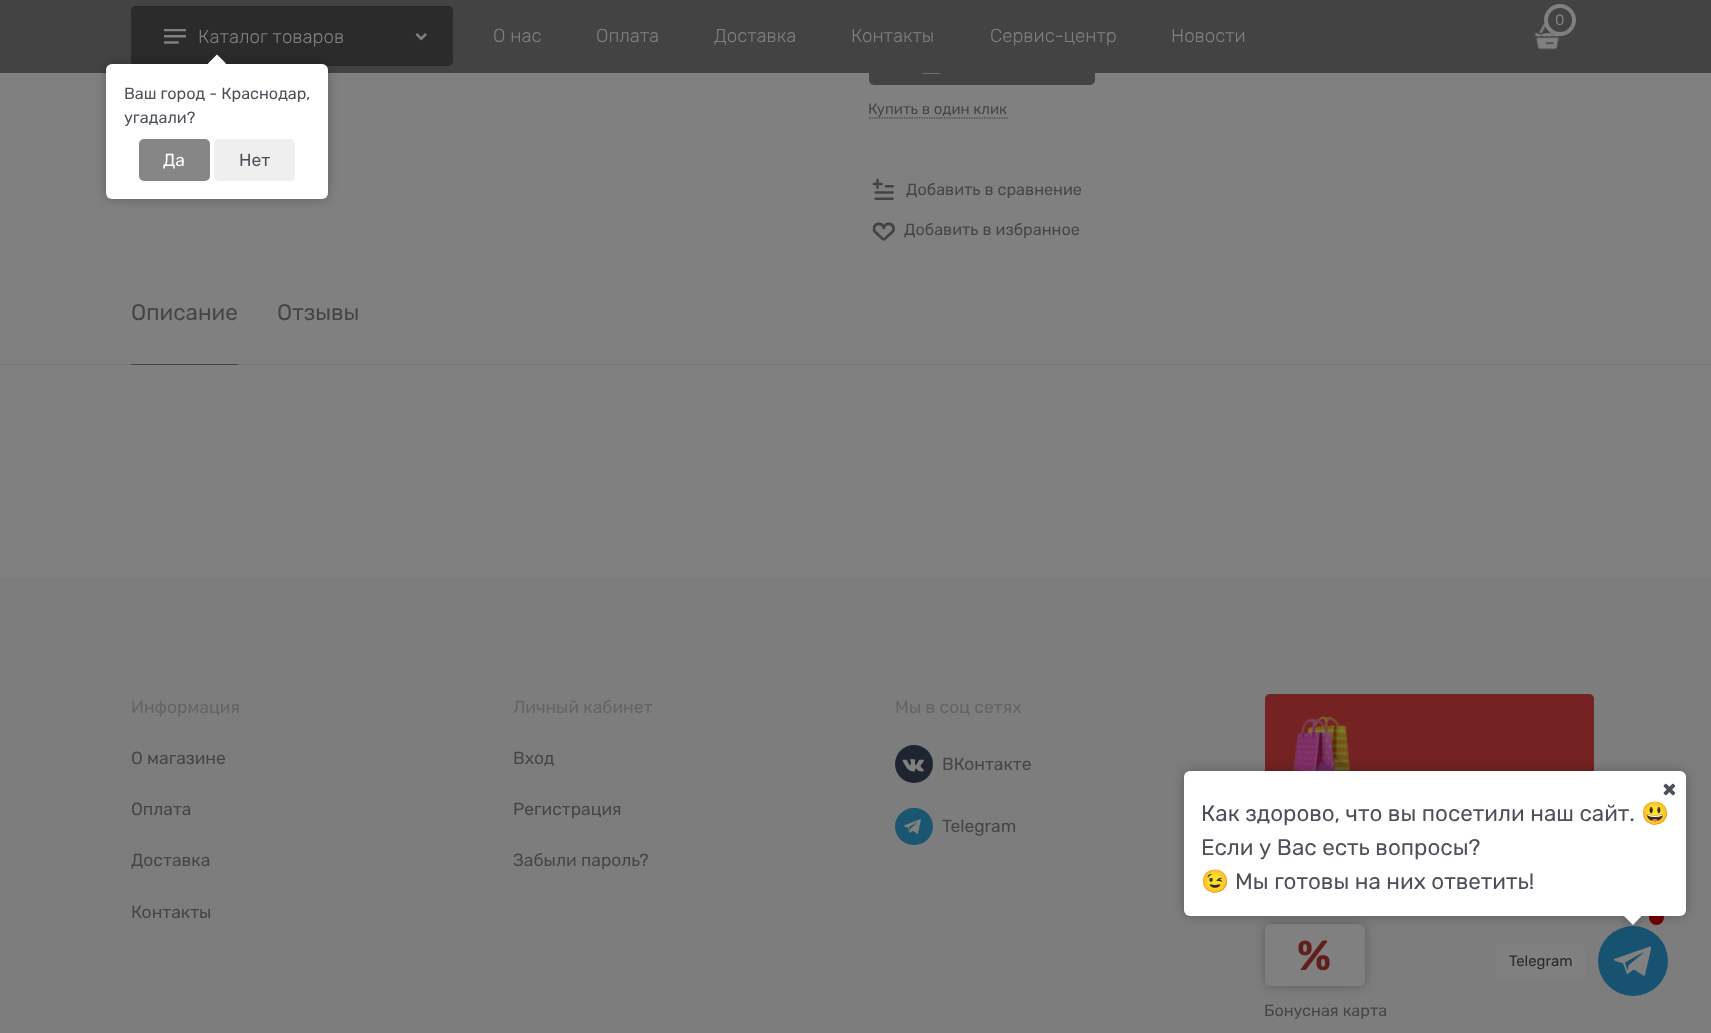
(async () => {
  const canvas = document.querySelector("canvas");
  canvas.width = 1711;
  canvas.height = 1033;
  const ctx = canvas.getContext("2d");
  ctx.miterLimit = 4;
  ctx.fontKerning = "normal";
  async function loadImage(src) {
    const img = new Image();
    img.src = src;
    await img.decode();
    return img;
  }
  let path;

  ctx.fillStyle = "#808080";
  ctx.fillRect(0, 0, 1711, 1033);
  ctx.fillStyle = "#434343";
  ctx.beginPath();
  ctx.roundRect(869, 31, 226, 54, 5);
  ctx.fill();
  ctx.fillRect(0, 0, 1711, 73);
  ctx.drawImage(await loadImage("img/1.png"), 1534, 23, 27, 27);
  ctx.beginPath();
  ctx.arc(1560, 20, 14, 0, Math.PI * 2);
  ctx.fill();
  ctx.strokeStyle = "#808080";
  ctx.lineWidth = 4;
  ctx.stroke();
  ctx.fillStyle = "#2a2b2a";
  ctx.beginPath();
  ctx.roundRect(131, 6, 322, 60, 5);
  ctx.fill();
  ctx.drawImage(await loadImage("img/2.png"), 164, 29, 22, 15);
  ctx.drawImage(await loadImage("img/3.png"), 415, 33, 12, 8);
  ctx.drawImage(await loadImage("img/4.png"), 922, 73, 19, 1);
  path = new Path2D("M869 118H1007.5");
  ctx.strokeStyle = "#333333";
  ctx.lineWidth = 1.2;
  ctx.setLineDash([1.25, 1.25]);
  ctx.stroke(path);
  ctx.drawImage(await loadImage("img/5.png"), 872, 178, 22, 22);
  ctx.drawImage(await loadImage("img/6.png"), 872, 222, 23, 19);
  for (const [x, y, w, h, color] of [
    [0, 364, 1711, 1, "#78787a"],
    [131, 364, 107, 1, "#454548"],
    [0, 578, 1711, 455, "#7d7d7d"],
  ]) {
    ctx.fillStyle = color;
    ctx.fillRect(x, y, w, h);
  }
  ctx.fillStyle = "#1e2530";
  ctx.beginPath();
  ctx.arc(914, 764, 19, 0, Math.PI * 2);
  ctx.fill();
  ctx.drawImage(await loadImage("img/7.png"), 902, 759, 22, 13);
  ctx.fillStyle = "#1b5671";
  ctx.beginPath();
  ctx.roundRect(895, 808, 38, 37, 18.5);
  ctx.fill();
  ctx.drawImage(await loadImage("img/8.png"), 903, 819, 18, 15);
  ctx.fillStyle = "#742222";
  ctx.beginPath();
  ctx.roundRect(1265, 694, 329, 192, 5);
  ctx.fill();
  ctx.drawImage(await loadImage("img/9.png"), 1293, 716, 58, 55);
  ctx.fillStyle = "rgba(0, 0, 0, 0.25)";
  ctx.filter = "blur(5.5px)";
  ctx.beginPath();
  ctx.roundRect(1265, 924, 100, 62, 6);
  ctx.fill();
  ctx.filter = "none";
  ctx.fillStyle = "#808080";
  ctx.beginPath();
  ctx.roundRect(1265, 924, 100, 62, 6);
  ctx.fill();
  ctx.fillStyle = "rgba(0, 0, 0, 0.25)";
  ctx.filter = "blur(5.5px)";
  ctx.beginPath();
  ctx.roundRect(106, 64, 222, 135, 6);
  ctx.fill();
  ctx.filter = "none";
  ctx.fillStyle = "#ffffff";
  ctx.beginPath();
  ctx.roundRect(106, 64, 222, 135, 6);
  ctx.fill();
  ctx.save();
  ctx.beginPath();
  ctx.rect(106, 53, 222, 11);
  ctx.clip();
  path = new Path2D("M217 54.5L226 63.5L217 72.5L208 63.5Z");
  ctx.fill(path);
  ctx.restore();
  ctx.fillStyle = "#868686";
  ctx.beginPath();
  ctx.roundRect(139, 139, 71, 42, 5);
  ctx.fill();
  ctx.fillStyle = "#efefef";
  ctx.beginPath();
  ctx.roundRect(214, 139, 81, 42, 5);
  ctx.fill();
  ctx.fillStyle = "#720001";
  ctx.beginPath();
  ctx.arc(1656.5, 917.5, 7.5, 0, Math.PI * 2);
  ctx.fill();
  ctx.fillStyle = "#175371";
  ctx.beginPath();
  ctx.arc(1633, 961, 35, 0, Math.PI * 2);
  ctx.fill();
  ctx.fillStyle = "rgba(0, 0, 0, 0.25)";
  ctx.filter = "blur(5.5px)";
  ctx.beginPath();
  ctx.roundRect(1184, 771, 502, 145, 6);
  ctx.fill();
  ctx.filter = "none";
  ctx.fillStyle = "#ffffff";
  ctx.beginPath();
  ctx.roundRect(1184, 771, 502, 145, 6);
  ctx.fill();
  ctx.drawImage(await loadImage("img/10.png"), 1663, 783, 13, 13);
  ctx.save();
  ctx.beginPath();
  ctx.rect(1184, 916, 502, 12);
  ctx.clip();
  ctx.fillStyle = "rgba(0, 0, 0, 0.25)";
  ctx.filter = "blur(5.5px)";
  ctx.beginPath();
  ctx.rect(1626, 910, 13, 13);
  ctx.fill();
  ctx.filter = "none";
  ctx.restore();
  ctx.save();
  ctx.beginPath();
  ctx.rect(1184, 916, 502, 12);
  ctx.clip();
  path = new Path2D("M1633 907L1641.5 916L1633 925L1624 916Z");
  ctx.fill(path);
  ctx.restore();
  ctx.fillStyle = "#808080";
  ctx.beginPath();
  ctx.roundRect(1496, 944, 89, 35, 4);
  ctx.fill();
  ctx.drawImage(await loadImage("img/11.png"), 1614, 946, 37, 30);
  ctx.font = "15px Rubik";
  ctx.fillText("0", 1555, 25);
  ctx.font = "300 18.75px Rubik";
  for (const [text, x, y] of [
    ["Каталог товаров", 198, 43],
    ["О нас", 493, 42],
    ["Оплата", 596, 42],
    ["Доставка", 714, 42],
    ["Контакты", 851, 42],
    ["Сервис-центр", 990, 42],
    ["Новости", 1171, 42],
  ]) {
    ctx.fillText(text, x, y);
  }
  ctx.font = "15px Rubik";
  ctx.fillStyle = "#454548";
  ctx.fillText("Купить в один клик", 868, 114);
  ctx.font = "16.25px Rubik";
  ctx.fillText("Добавить в сравнение", 906, 195);
  ctx.fillText("Добавить в избранное", 904, 235);
  ctx.font = "22.5px Rubik";
  ctx.fillText("Описание", 131, 320);
  ctx.fillText("Отзывы", 277, 320);
  ctx.font = "17.5px Rubik";
  ctx.fillStyle = "#646466";
  ctx.fillText("Информация", 131, 713);
  ctx.fillStyle = "#454548";
  for (const [text, x, y] of [
    ["О магазине", 131, 764],
    ["Оплата", 131, 815],
    ["Доставка", 131, 866],
    ["Контакты", 131, 918],
  ]) {
    ctx.fillText(text, x, y);
  }
  ctx.fillStyle = "#646466";
  ctx.fillText("Личный кабинет", 513, 713);
  ctx.fillStyle = "#454548";
  for (const [text, x, y] of [
    ["Вход", 513, 764],
    ["Регистрация", 513, 815],
    ["Забыли пароль?", 513, 866],
  ]) {
    ctx.fillText(text, x, y);
  }
  ctx.fillStyle = "#646466";
  ctx.fillText("Мы в соц сетях", 895, 713);
  ctx.fillStyle = "#454548";
  ctx.fillText("ВКонтакте", 942, 770);
  ctx.fillText("Telegram", 942, 832);
  ctx.font = "bold 42px Rubik";
  ctx.fillStyle = "#611f1b";
  ctx.fillText("%", 1297, 970);
  ctx.font = "16.25px Rubik";
  ctx.fillStyle = "#454548";
  ctx.fillText("Бонусная карта", 1264, 1016);
  ctx.fillStyle = "#4b4f58";
  ctx.fillText("Ваш город - Краснодар,", 124, 99);
  ctx.fillText("угадали?", 124, 123);
  ctx.font = "17.5px Rubik";
  ctx.fillStyle = "#ffffff";
  ctx.fillText("Да", 163, 166);
  ctx.fillStyle = "#4b4f58";
  ctx.fillText("Нет", 239, 166);
  ctx.font = "22.5px Rubik";
  ctx.fillText("Как здорово, что вы посетили наш сайт.", 1201, 821);
  ctx.font = "22.5px Noto Color Emoji";
  ctx.fillText("😃", 1641, 821);
  ctx.font = "22.5px Rubik";
  ctx.fillText("Если у Вас есть вопросы?", 1201, 855);
  ctx.font = "22.5px Noto Color Emoji";
  ctx.fillText("😉", 1201, 889);
  ctx.font = "22.5px Rubik";
  ctx.fillText("Мы готовы на них ответить!", 1235, 889);
  ctx.font = "15px Rubik";
  ctx.fillStyle = "#26282c";
  ctx.fillText("Telegram", 1509, 966);
})();
